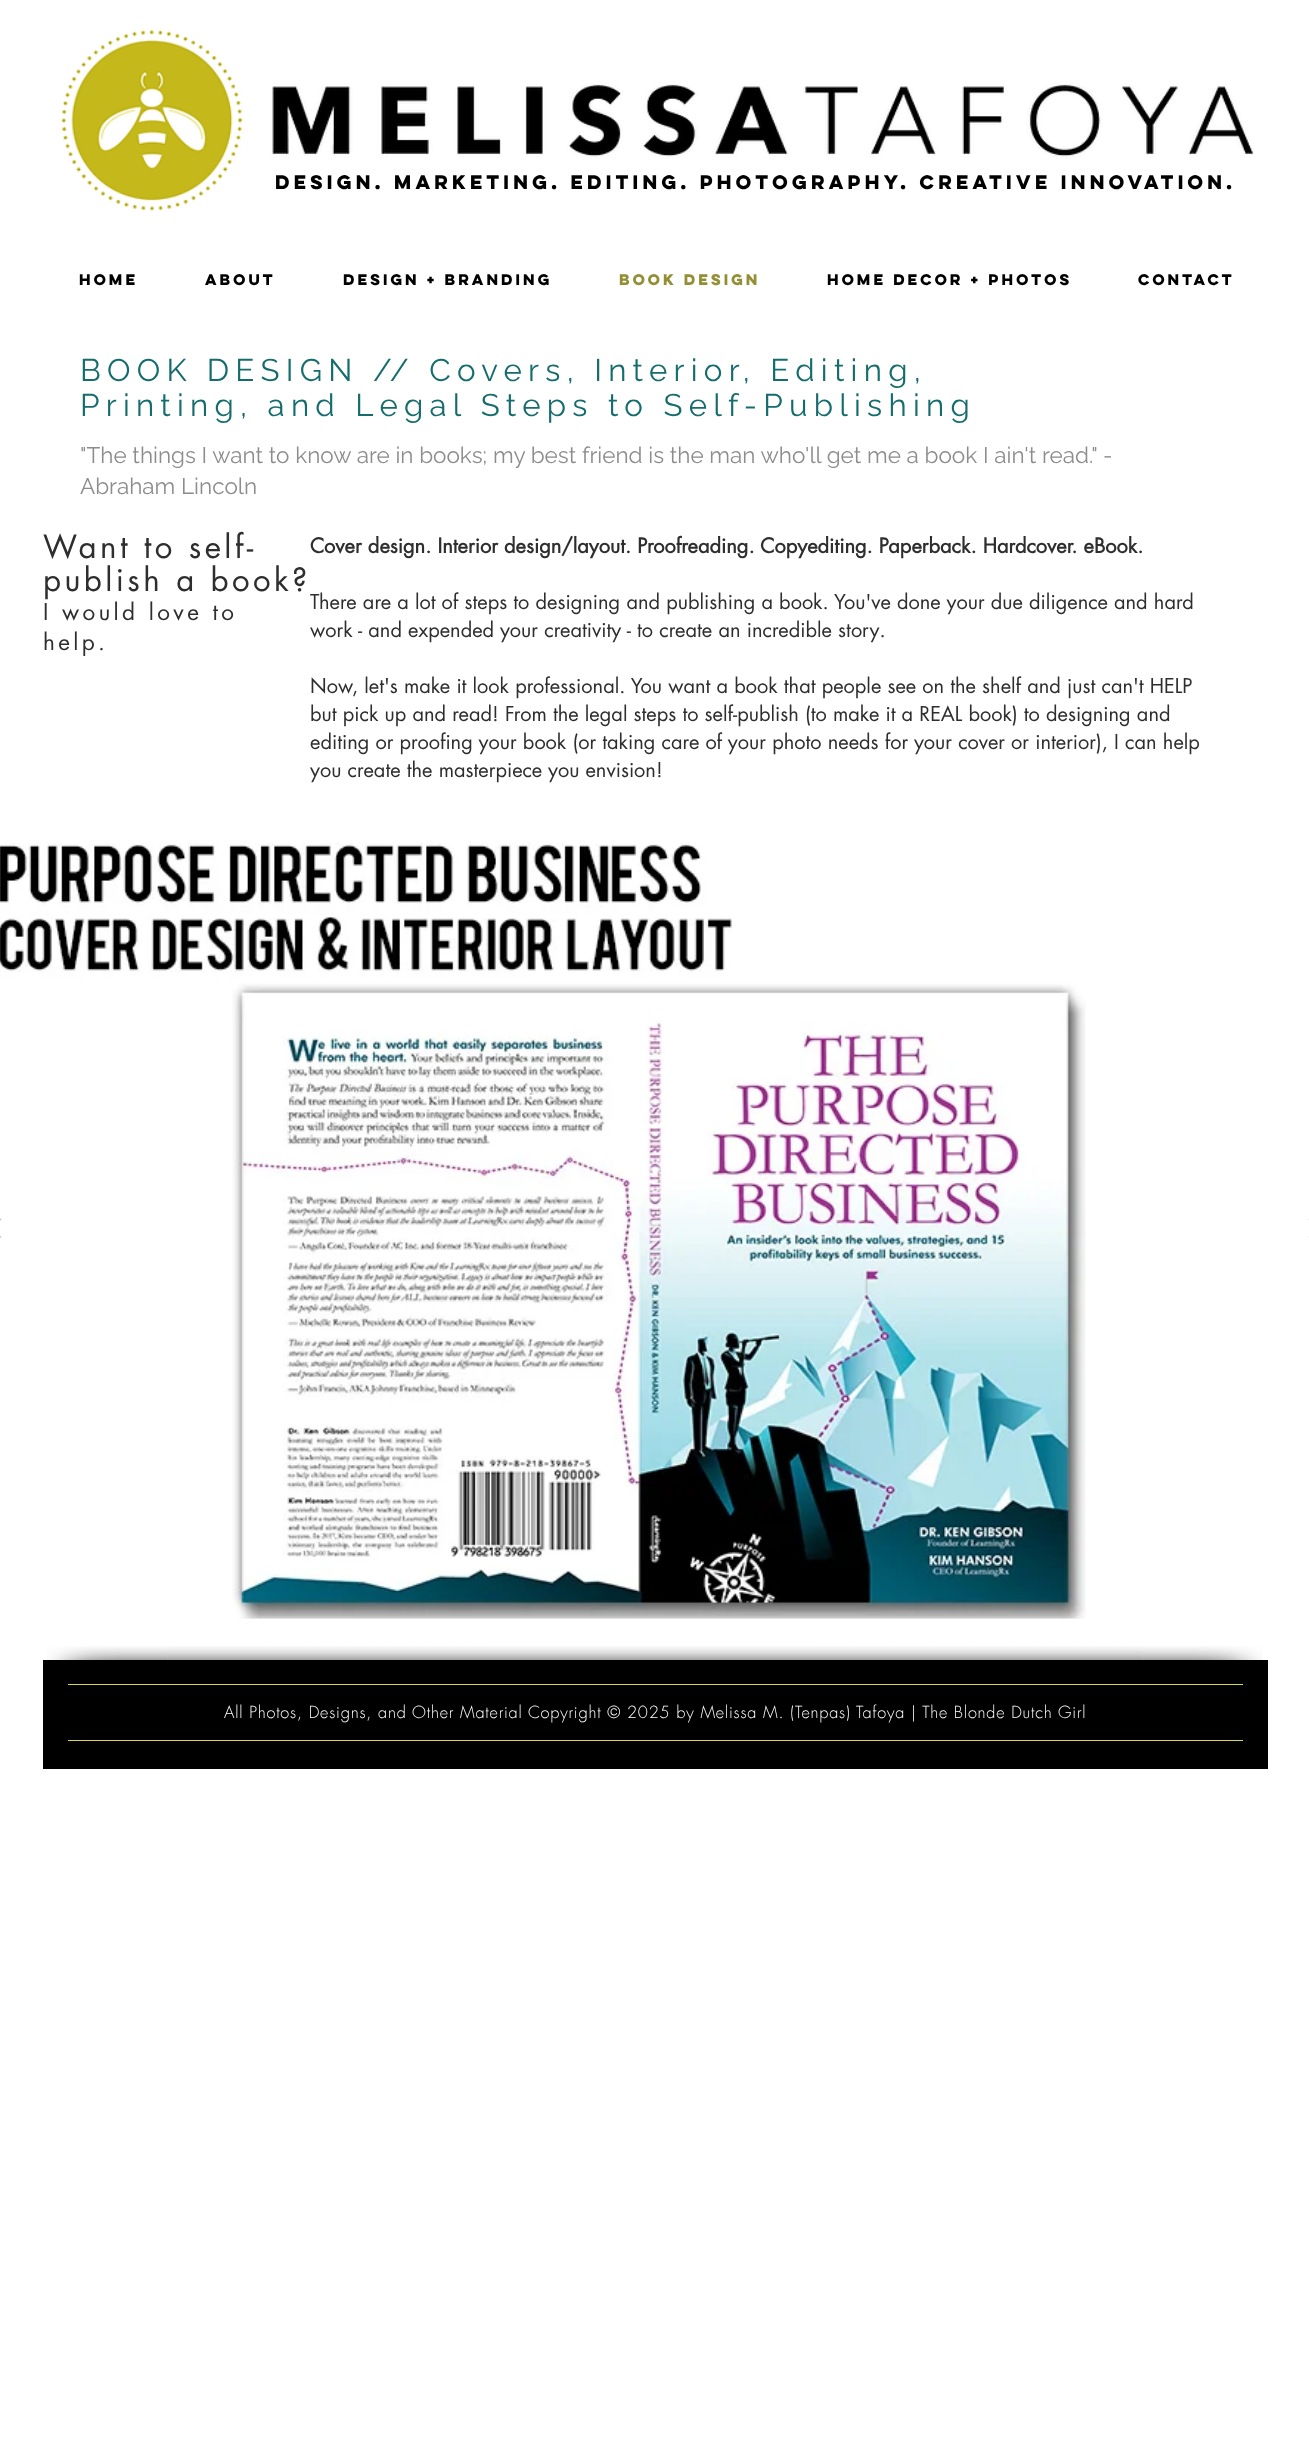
(async () => {
  const canvas = document.querySelector("canvas");
  canvas.width = 1309;
  canvas.height = 2461;
  const ctx = canvas.getContext("2d");
  ctx.miterLimit = 4;
  ctx.fontKerning = "normal";
  async function loadImage(src) {
    const img = new Image();
    img.src = src;
    await img.decode();
    return img;
  }

  ctx.fillStyle = "#ffffff";
  ctx.fillRect(0, 0, 1309, 2461);
  ctx.drawImage(await loadImage("img/1.png"), 59, 28, 1196, 184);
  ctx.drawImage(await loadImage("img/2.png"), 0, 842, 1086, 777);
  ctx.drawImage(await loadImage("img/3.png"), 0, 1218, 2, 20);
  ctx.drawImage(await loadImage("img/4.png"), 1308, 1218, 1, 20);
  ctx.fillStyle = "#000000";
  ctx.fillRect(43, 1660, 1225, 109);
  ctx.drawImage(await loadImage("img/5.png"), 47, 1646, 121, 14);
  ctx.drawImage(await loadImage("img/6.png"), 167, 1646, 976, 14);
  ctx.drawImage(await loadImage("img/7.png"), 1142, 1646, 121, 14);
  ctx.fillStyle = "#ddd64f";
  ctx.fillRect(68, 1684, 1175, 1);
  ctx.fillRect(68, 1740, 1175, 1);
  ctx.letterSpacing = "0.35px";
  ctx.font = "bold 17.5px 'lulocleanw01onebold'";
  ctx.fillStyle = "#000000";
  ctx.fillText("DESIGN. MARKETING. EDITING. PHOTOGRAPHY. CREATIVE INNOVATION.", 275, 189);
  ctx.letterSpacing = "0px";
  ctx.font = "bold 13.75px 'lulocleanw01onebold'";
  for (const [text, x, y] of [
    ["HOME", 79, 285],
    ["ABOUT", 205, 285],
    ["DESIGN + BRANDING", 343, 285],
  ]) {
    ctx.fillText(text, x, y);
  }
  ctx.fillStyle = "#938f35";
  ctx.fillText("BOOK DESIGN", 619, 285);
  ctx.fillStyle = "#000000";
  ctx.fillText("HOME DECOR + PHOTOS", 827, 285);
  ctx.fillText("CONTACT", 1138, 285);
  ctx.letterSpacing = "6.25px";
  ctx.font = "31.25px Raleway";
  ctx.fillStyle = "#156c6c";
  ctx.fillText("BOOK DESIGN // Covers, Interior, Editing,", 80, 381);
  ctx.fillText("Printing, and Legal Steps to Self-Publishing", 80, 416);
  ctx.letterSpacing = "0px";
  ctx.font = "22.5px Raleway";
  ctx.fillStyle = "#8c8c8c";
  ctx.fillText("\"The things I want to know are in books; my best friend is the man who'll get me a book I ain't read.\" -", 80, 463);
  ctx.fillText("Abraham Lincoln", 80, 494);
  ctx.letterSpacing = "3.4px";
  ctx.font = "31.25px futura";
  ctx.fillStyle = "#2e2e2e";
  ctx.fillText("Want to self-", 43, 558);
  ctx.fillText("publish a book?", 43, 591);
  ctx.font = "22.5px futura";
  ctx.fillText("I would love to", 43, 620);
  ctx.fillText("help.", 43, 650);
  ctx.letterSpacing = "0px";
  ctx.font = "bold 20px futura";
  ctx.fillText("Cover design. Interior design/layout. Proofreading. Copyediting. Paperback. Hardcover. eBook.", 310, 553);
  ctx.font = "20px futura";
  for (const [text, x, y] of [
    ["There are a lot of steps to designing and publishing a book. You've done your due diligence and hard", 310, 609],
    ["work - and expended your creativity - to create an incredible story.", 310, 637],
    ["Now, let's make it look professional. You want a book that people see on the shelf and just can't HELP", 310, 693],
    ["but pick up and read! From the legal steps to self-publish (to make it a REAL book) to designing and", 310, 721],
    ["editing or proofing your book (or taking care of your photo needs for your cover or interior), I can help", 310, 749],
    ["you create the masterpiece you envision!", 310, 777],
  ]) {
    ctx.fillText(text, x, y);
  }
  ctx.letterSpacing = "0.81px";
  ctx.font = "300 16.25px futura";
  ctx.fillStyle = "#ffffff";
  ctx.fillText("All Photos, Designs, and Other Material Copyright © 2025 by Melissa M. (Tenpas) Tafoya | The Blonde Dutch Girl", 224, 1718);
})();
